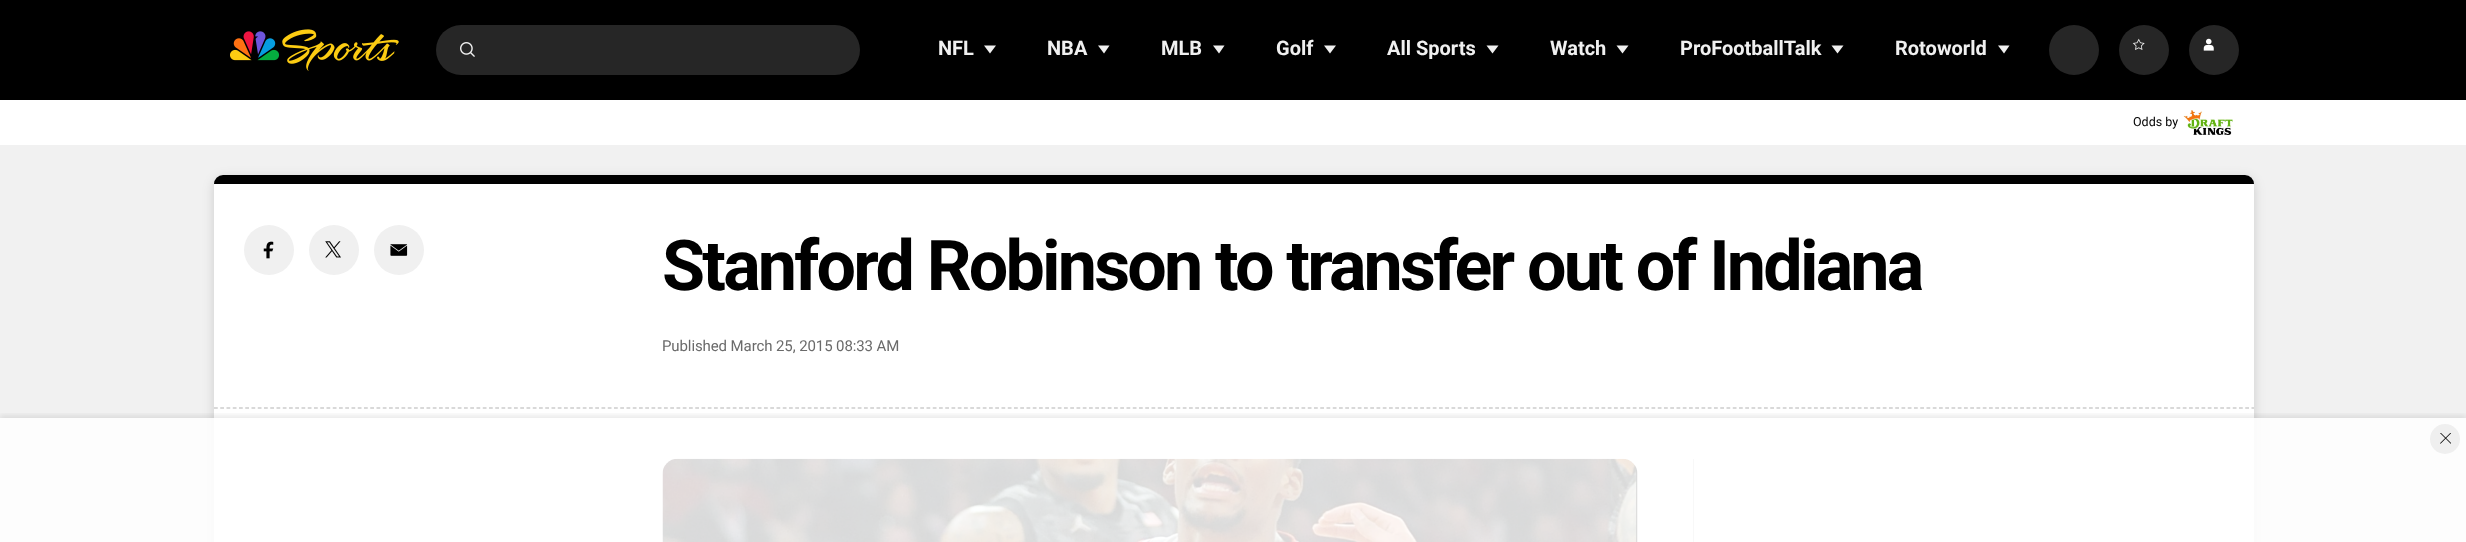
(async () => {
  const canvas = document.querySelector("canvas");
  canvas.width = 2466;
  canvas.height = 542;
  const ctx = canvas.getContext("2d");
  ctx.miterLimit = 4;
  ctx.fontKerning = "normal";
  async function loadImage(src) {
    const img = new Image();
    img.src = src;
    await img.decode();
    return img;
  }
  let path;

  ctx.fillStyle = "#f1f1f1";
  ctx.fillRect(0, 0, 2466, 542);
  ctx.fillStyle = "#000000";
  ctx.fillRect(0, 0, 2466, 100);
  ctx.drawImage(await loadImage("img/1.png"), 230, 29, 169, 42);
  ctx.fillStyle = "#262626";
  ctx.beginPath();
  ctx.roundRect(436, 25, 424, 50, 25);
  ctx.fill();
  ctx.drawImage(await loadImage("img/2.png"), 460, 42, 15, 15);
  ctx.fillStyle = "#f0f0f0";
  path = new Path2D("M990 53.5L984 45.5H996Z");
  ctx.fill(path);
  path = new Path2D("M1104 53.5L1098 45.5H1109.5Z");
  ctx.fill(path);
  path = new Path2D("M1219 53.5L1213 45.5H1224.5Z");
  ctx.fill(path);
  path = new Path2D("M1330 53.5L1324 45.5H1336Z");
  ctx.fill(path);
  path = new Path2D("M1492.5 53.5L1486.5 45.5H1498.5Z");
  ctx.fill(path);
  path = new Path2D("M1622.5 53.5L1616.5 45.5H1628.5Z");
  ctx.fill(path);
  path = new Path2D("M1837.5 53.5L1831.5 45.5H1843.5Z");
  ctx.fill(path);
  path = new Path2D("M2004 53.5L1998 45.5H2009.5Z");
  ctx.fill(path);
  ctx.fillStyle = "#262626";
  ctx.beginPath();
  ctx.arc(2074, 50, 25, 0, Math.PI * 2);
  ctx.fill();
  ctx.beginPath();
  ctx.arc(2144, 50, 25, 0, Math.PI * 2);
  ctx.fill();
  ctx.drawImage(await loadImage("img/3.png"), 2132, 38, 13, 12);
  ctx.beginPath();
  ctx.arc(2214, 50, 25, 0, Math.PI * 2);
  ctx.fill();
  ctx.drawImage(await loadImage("img/4.png"), 2203, 38, 11, 13);
  ctx.fillStyle = "#ffffff";
  ctx.fillRect(0, 100, 2466, 45);
  ctx.drawImage(await loadImage("img/5.png"), 2183, 110, 50, 25);
  ctx.fillStyle = "rgba(0, 0, 0, 0.15)";
  ctx.filter = "blur(6px)";
  ctx.beginPath();
  ctx.roundRect(214, 178, 2040, 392, 10);
  ctx.fill();
  ctx.filter = "none";
  ctx.fillStyle = "#ffffff";
  ctx.beginPath();
  ctx.roundRect(214, 175, 2040, 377, 10);
  ctx.fill();
  ctx.fillStyle = "#000000";
  ctx.beginPath();
  ctx.roundRect(214, 175, 2040, 9, [9, 9, 0, 0]);
  ctx.fill();
  path = new Path2D("M214 408H2254");
  ctx.strokeStyle = "#b3b3b3";
  ctx.lineWidth = 1.2;
  ctx.setLineDash([3.75, 2.5]);
  ctx.stroke(path);
  ctx.fillStyle = "#f0f0f0";
  ctx.beginPath();
  ctx.arc(269, 250, 25, 0, Math.PI * 2);
  ctx.fill();
  ctx.drawImage(await loadImage("img/6.png"), 263, 241, 11, 18);
  ctx.beginPath();
  ctx.arc(334, 250, 25, 0, Math.PI * 2);
  ctx.fill();
  ctx.drawImage(await loadImage("img/7.png"), 325, 241, 16, 17);
  ctx.beginPath();
  ctx.arc(399, 250, 25, 0, Math.PI * 2);
  ctx.fill();
  ctx.drawImage(await loadImage("img/8.png"), 390, 244, 18, 12);
  ctx.drawImage(await loadImage("img/9.png"), 662, 458, 976, 84);
  ctx.fillStyle = "#cccccc";
  ctx.fillRect(1693, 459, 1, 83);
  ctx.save();
  ctx.beginPath();
  ctx.rect(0, 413, 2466, 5);
  ctx.clip();
  ctx.fillStyle = "rgba(0, 0, 0, 0.08)";
  ctx.filter = "blur(2.5px)";
  ctx.beginPath();
  ctx.rect(0, 415, 2466, 125);
  ctx.fill();
  ctx.filter = "none";
  ctx.restore();
  ctx.fillStyle = "rgba(255, 255, 255, 0.85)";
  ctx.fillRect(0, 418, 2466, 124);
  ctx.fillStyle = "#efefef";
  ctx.beginPath();
  ctx.arc(2445, 439, 15, 0, Math.PI * 2);
  ctx.fill();
  ctx.drawImage(await loadImage("img/10.png"), 2440, 433, 11, 11);
  ctx.font = "bold 20px Roboto";
  ctx.fillStyle = "#f0f0f0";
  for (const [text, x, y] of [
    ["NFL", 938, 55],
    ["NBA", 1047, 55],
    ["MLB", 1161, 55],
    ["Golf", 1276, 55],
    ["All Sports", 1387, 55],
    ["Watch", 1550, 55],
    ["ProFootballTalk", 1680, 55],
    ["Rotoworld", 1895, 55],
  ]) {
    ctx.fillText(text, x, y);
  }
  ctx.font = "12.5px Roboto";
  ctx.fillStyle = "#000000";
  ctx.fillText("Odds by", 2133, 126);
  ctx.letterSpacing = "-2.8px";
  ctx.font = "bold 70px Roboto";
  ctx.fillText("Stanford Robinson to transfer out of Indiana", 662, 290);
  ctx.letterSpacing = "-0.1px";
  ctx.font = "15px Roboto";
  ctx.fillStyle = "#6a6a6a";
  ctx.fillText("Published March 25, 2015 08:33 AM", 662, 351);
})();
